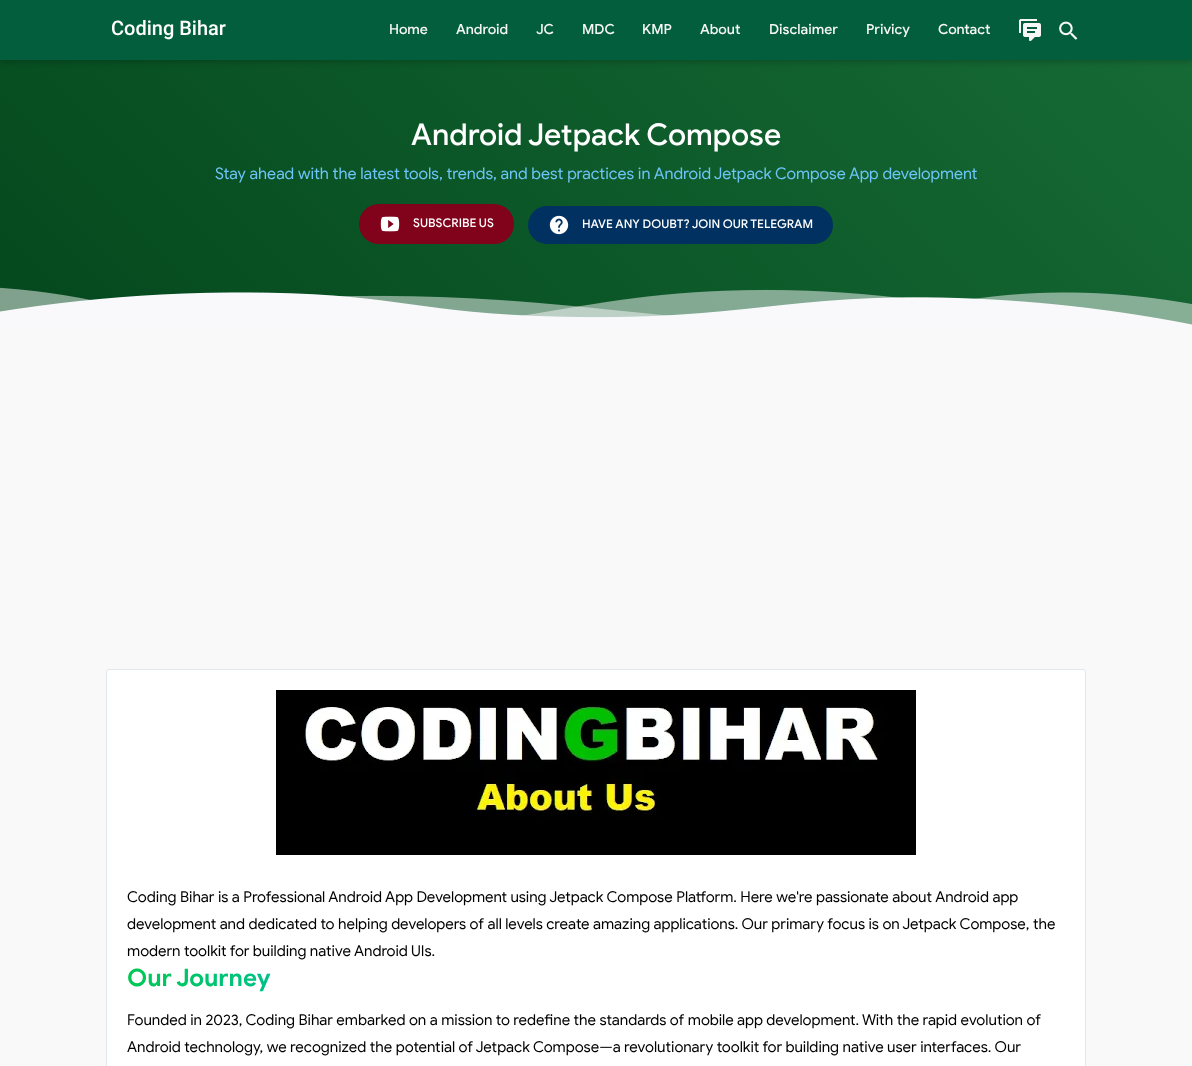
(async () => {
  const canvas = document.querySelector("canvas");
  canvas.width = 1192;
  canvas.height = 1066;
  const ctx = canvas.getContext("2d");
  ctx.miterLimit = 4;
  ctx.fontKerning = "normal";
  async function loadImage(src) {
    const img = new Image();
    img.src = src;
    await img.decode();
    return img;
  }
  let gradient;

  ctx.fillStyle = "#f9f9f9";
  ctx.fillRect(0, 0, 1192, 1066);
  gradient = ctx.createLinearGradient(231, 560, 961, -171);
  gradient.addColorStop(0, "#04481d");
  gradient.addColorStop(1, "#166a35");
  ctx.fillStyle = gradient;
  ctx.fillRect(0, 60, 1192, 265);
  ctx.fillStyle = "rgba(0, 0, 0, 0.2)";
  ctx.filter = "blur(3px)";
  ctx.beginPath();
  ctx.rect(0, 2, 1192, 60);
  ctx.fill();
  ctx.filter = "none";
  ctx.fillStyle = "#025e3c";
  ctx.fillRect(0, 0, 1192, 60);
  ctx.drawImage(await loadImage("img/1.png"), 1019, 19, 22, 22);
  ctx.drawImage(await loadImage("img/2.png"), 1059, 21, 19, 19);
  ctx.fillStyle = "#81031b";
  ctx.beginPath();
  ctx.roundRect(359, 204, 155, 40, 20);
  ctx.fill();
  ctx.drawImage(await loadImage("img/3.png"), 380, 216, 20, 16);
  ctx.fillStyle = "#003161";
  ctx.beginPath();
  ctx.roundRect(528, 206, 305, 38, 19);
  ctx.fill();
  ctx.drawImage(await loadImage("img/4.png"), 549, 215, 20, 20);
  ctx.drawImage(await loadImage("img/5.png"), 0, 287, 1192, 42);
  ctx.fillStyle = "#ffffff";
  ctx.beginPath();
  ctx.roundRect(106.5, 669.5, 979, 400, 2.5);
  ctx.fill();
  ctx.strokeStyle = "#e1e8ed";
  ctx.stroke();
  ctx.drawImage(await loadImage("img/6.png"), 276, 690, 640, 165);
  ctx.font = "500 20px Roboto";
  ctx.fillText("Coding Bihar", 111, 35);
  ctx.font = "500 14px Google Sans";
  ctx.fillStyle = "#f7f7f7";
  for (const [text, x, y] of [
    ["Home", 389, 34],
    ["Android", 456, 34],
    ["JC", 536, 34],
    ["MDC", 582, 34],
    ["KMP", 642, 34],
    ["About", 700, 34],
    ["Disclaimer", 769, 34],
    ["Privicy", 866, 34],
    ["Contact", 938, 34],
  ]) {
    ctx.fillText(text, x, y);
  }
  ctx.font = "500 30px Google Sans";
  ctx.fillStyle = "#ffffff";
  ctx.fillText("Android Jetpack Compose", 411, 145);
  ctx.font = "16px Google Sans";
  ctx.fillStyle = "#6cc4f7";
  ctx.fillText("Stay ahead with the latest tools, trends, and best practices in Android Jetpack Compose App development", 215, 179);
  ctx.font = "500 12px Google Sans";
  ctx.fillStyle = "#ffffff";
  ctx.fillText("SUBSCRIBE US", 413, 227);
  ctx.fillText("HAVE ANY DOUBT? JOIN OUR TELEGRAM", 582, 228);
  ctx.font = "15px Google Sans";
  ctx.fillStyle = "#000000";
  for (const [text, x, y] of [
    ["Coding Bihar is a Professional Android App Development using Jetpack Compose Platform. Here we're passionate about Android app", 127, 902],
    ["development and dedicated to helping developers of all levels create amazing applications. Our primary focus is on Jetpack Compose, the", 127, 929],
    ["modern toolkit for building native Android UIs.", 127, 956],
  ]) {
    ctx.fillText(text, x, y);
  }
  ctx.font = "bold 24px Google Sans";
  gradient = ctx.createLinearGradient(127, 979, 1065, 979);
  gradient.addColorStop(0, "#00c853");
  gradient.addColorStop(0.5, "#00b0ff");
  gradient.addColorStop(1, "#0061ff");
  ctx.fillStyle = gradient;
  ctx.fillText("Our Journey", 127, 986);
  ctx.font = "15px Google Sans";
  ctx.fillStyle = "#000000";
  ctx.fillText("Founded in 2023, Coding Bihar embarked on a mission to redefine the standards of mobile app development. With the rapid evolution of", 127, 1025);
  ctx.fillText("Android technology, we recognized the potential of Jetpack Compose—a revolutionary toolkit for building native user interfaces. Our", 127, 1052);
})();
